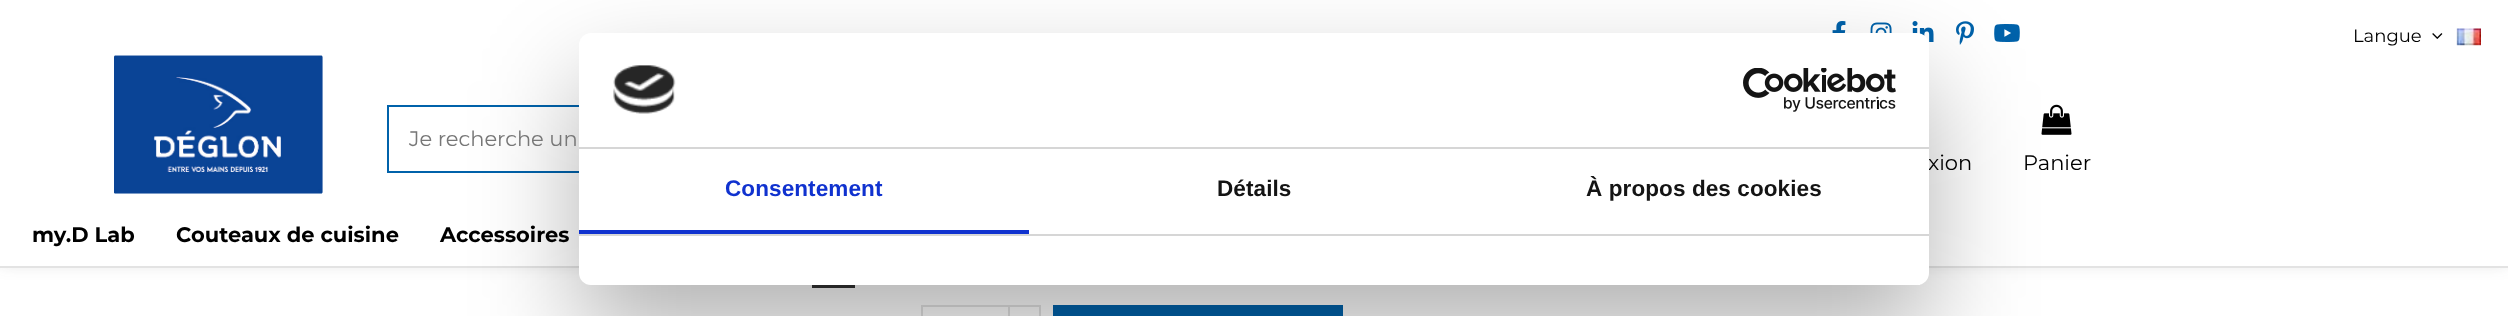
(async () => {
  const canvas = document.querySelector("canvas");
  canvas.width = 2508;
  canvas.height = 316;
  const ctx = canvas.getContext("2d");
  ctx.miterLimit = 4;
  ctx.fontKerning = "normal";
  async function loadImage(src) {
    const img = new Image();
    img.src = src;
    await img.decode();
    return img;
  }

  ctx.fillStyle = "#ffffff";
  ctx.fillRect(0, 0, 2508, 316);
  ctx.fillStyle = "#333333";
  ctx.fillRect(812, 285, 43, 3);
  ctx.fillStyle = "rgba(61, 57, 57, 0.17)";
  ctx.filter = "blur(8px)";
  ctx.beginPath();
  ctx.rect(0, -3, 2508, 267);
  ctx.fill();
  ctx.filter = "none";
  ctx.fillStyle = "#ffffff";
  ctx.fillRect(0, 0, 2508, 266);
  ctx.fillStyle = "#e3e3e3";
  ctx.fillRect(0, 266, 2508, 2);
  ctx.drawImage(await loadImage("img/1.png"), 1832, 21, 14, 12);
  ctx.drawImage(await loadImage("img/2.png"), 1870, 22, 22, 11);
  ctx.drawImage(await loadImage("img/3.png"), 1912, 21, 22, 21);
  ctx.drawImage(await loadImage("img/4.png"), 1956, 21, 18, 24);
  ctx.drawImage(await loadImage("img/5.png"), 1994, 24, 26, 18);
  ctx.drawImage(await loadImage("img/6.png"), 2432, 33, 11, 6);
  ctx.drawImage(await loadImage("img/7.png"), 2456, 28, 25, 18);
  ctx.drawImage(await loadImage("img/8.png"), 114, 55, 209, 139);
  ctx.strokeStyle = "#0062aa";
  ctx.lineWidth = 2;
  ctx.strokeRect(388, 106, 1002, 66);
  ctx.drawImage(await loadImage("img/9.png"), 2041, 104, 31, 31);
  ctx.strokeStyle = "#e3e3e3";
  ctx.strokeRect(922, 306, 87, 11);
  ctx.strokeRect(1009, 306, 31, 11);
  ctx.fillStyle = "#0062aa";
  ctx.fillRect(1053, 305, 290, 11);
  ctx.fillStyle = "rgba(0, 0, 0, 0.3)";
  ctx.filter = "blur(51px)";
  ctx.beginPath();
  ctx.roundRect(579, 81, 1350, 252, 12);
  ctx.fill();
  ctx.filter = "none";
  ctx.font = "18px Montserrat";
  ctx.fillStyle = "#000000";
  ctx.fillText("Langue", 2353, 42);
  ctx.font = "21px Montserrat";
  ctx.fillStyle = "#777777";
  ctx.fillText("Je recherche un", 409, 146);
  ctx.fillStyle = "#000000";
  ctx.fillText("xion", 1928, 170);
  ctx.fillText("Panier", 2023, 170);
  ctx.font = "bold 21px Montserrat";
  for (const [text, x, y] of [
    ["my.D Lab", 32, 242],
    ["Couteaux de cuisine", 176, 242],
    ["Accessoires", 440, 242],
  ]) {
    ctx.fillText(text, x, y);
  }
  ctx.fillStyle = "#ffffff";
  ctx.beginPath();
  ctx.roundRect(579, 33, 1350, 252, 12);
  ctx.fill();
  ctx.fillStyle = "#d6d6d6";
  ctx.fillRect(579, 147, 1350, 2);
  ctx.drawImage(await loadImage("img/10.png"), 613, 65, 63, 49);
  ctx.drawImage(await loadImage("img/11.png"), 1743, 68, 153, 44);
  ctx.fillRect(579, 234, 1350, 2);
  ctx.fillStyle = "#1032cf";
  ctx.fillRect(579, 230, 450, 4);
  ctx.letterSpacing = "0.1px";
  ctx.font = "bold 22.5px Liberation Sans";
  ctx.fillText("Consentement", 725, 196);
  ctx.fillStyle = "#141414";
  ctx.fillText("Détails", 1217, 196);
  ctx.fillText("À propos des cookies", 1586, 196);
  ctx.fillStyle = "#ffffff";
  ctx.fillRect(1918, 284, 2, 1);
})();
